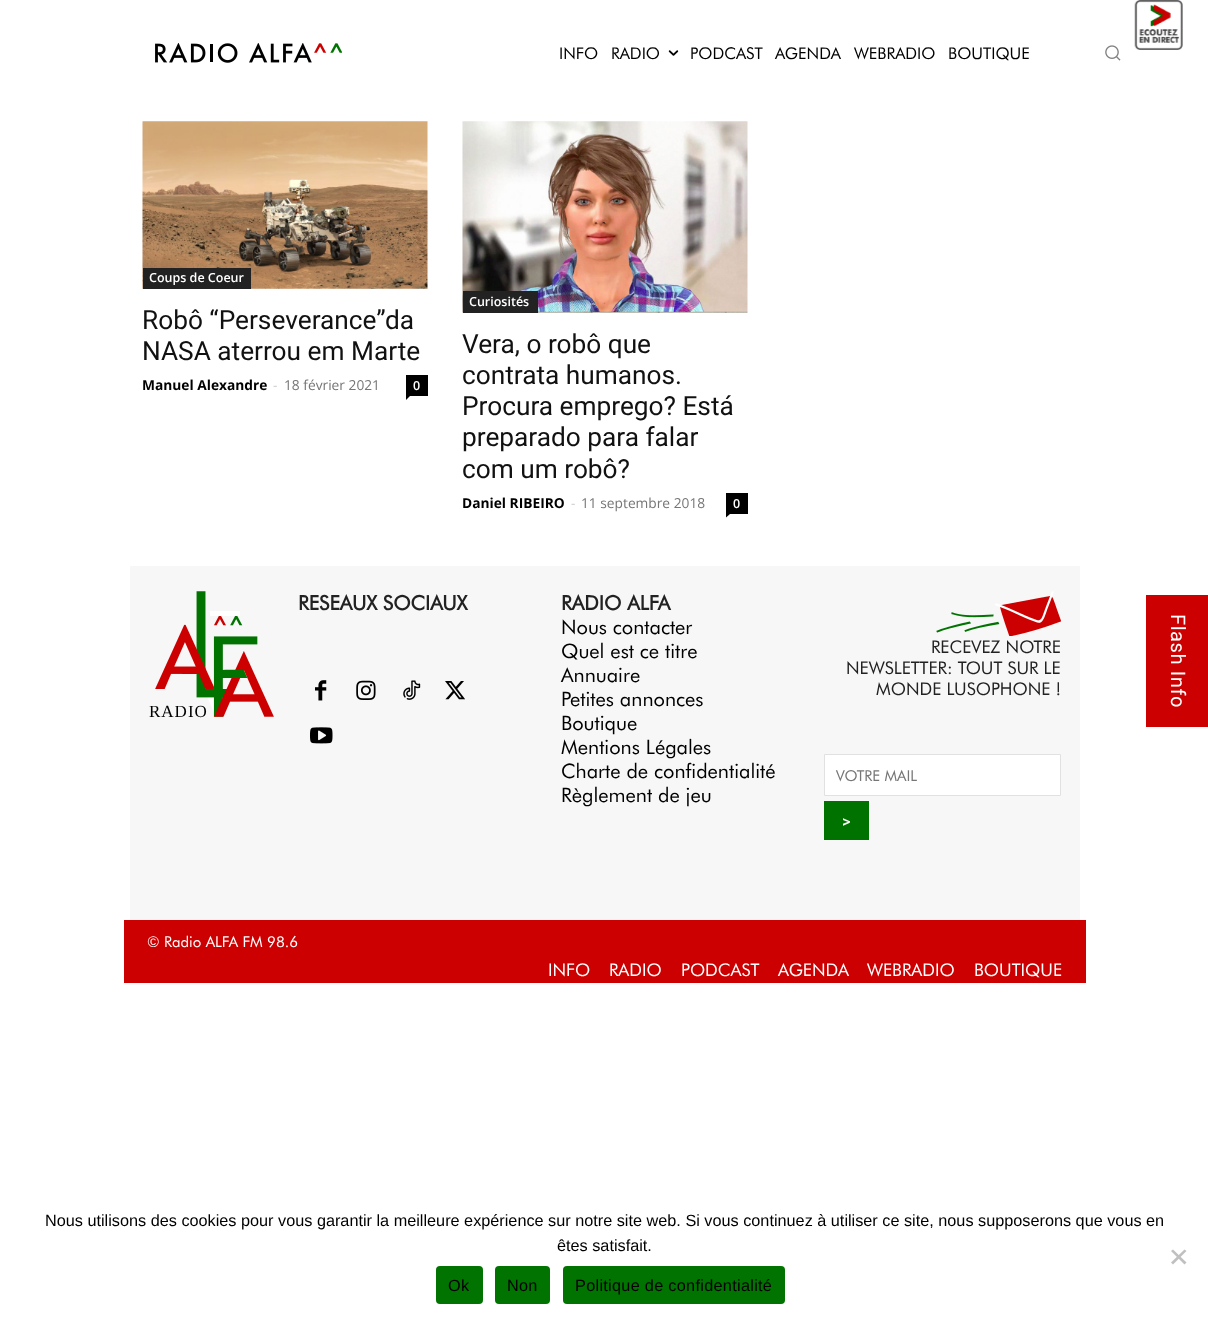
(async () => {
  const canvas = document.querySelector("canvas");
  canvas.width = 1208;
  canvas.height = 1322;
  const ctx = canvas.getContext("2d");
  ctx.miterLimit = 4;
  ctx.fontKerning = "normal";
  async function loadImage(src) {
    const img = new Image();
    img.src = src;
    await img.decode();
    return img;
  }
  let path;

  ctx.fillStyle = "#ffffff";
  ctx.fillRect(0, 0, 1208, 1322);
  ctx.drawImage(await loadImage("img/1.png"), 155, 43, 187, 20);
  ctx.drawImage(await loadImage("img/2.png"), 668, 50, 11, 6);
  ctx.drawImage(await loadImage("img/3.png"), 1134, 0, 49, 50);
  ctx.drawImage(await loadImage("img/4.png"), 1105, 45, 16, 16);
  ctx.drawImage(await loadImage("img/5.png"), 142, 121, 286, 168);
  ctx.fillStyle = "#222222";
  ctx.fillRect(143, 268, 108, 21);
  ctx.fillStyle = "#000000";
  ctx.fillRect(406, 375, 22, 21);
  path = new Path2D("M406 396H410L406 400Z");
  ctx.fill(path);
  ctx.drawImage(await loadImage("img/6.png"), 462, 121, 286, 192);
  ctx.fillStyle = "#222222";
  ctx.fillRect(463, 291, 75, 22);
  ctx.fillStyle = "#000000";
  ctx.fillRect(726, 493, 22, 21);
  path = new Path2D("M726 514H730L726 517.5Z");
  ctx.fill(path);
  ctx.fillStyle = "#f7f7f7";
  ctx.fillRect(130, 566, 950, 354);
  ctx.drawImage(await loadImage("img/7.png"), 155, 591, 119, 126);
  ctx.drawImage(await loadImage("img/8.png"), 315, 680, 12, 21);
  ctx.drawImage(await loadImage("img/9.png"), 356, 680, 20, 20);
  ctx.drawImage(await loadImage("img/10.png"), 403, 680, 18, 20);
  ctx.drawImage(await loadImage("img/11.png"), 445, 681, 20, 19);
  ctx.drawImage(await loadImage("img/12.png"), 310, 727, 23, 17);
  ctx.drawImage(await loadImage("img/13.png"), 936, 591, 125, 45);
  ctx.fillStyle = "#ffffff";
  ctx.beginPath();
  ctx.rect(824.5, 754.5, 236, 41);
  ctx.fill();
  ctx.strokeStyle = "#e1e1e1";
  ctx.stroke();
  for (const [x, y, w, h, color] of [
    [824, 801, 45, 39, "#007200"],
    [124, 920, 962, 63, "#cc0000"],
    [1146, 595, 62, 132, "#cc0000"],
  ]) {
    ctx.fillStyle = color;
    ctx.fillRect(x, y, w, h);
  }
  ctx.fillStyle = "#c0c0c0";
  path = new Path2D("M1184.5 1249.5L1186.5 1251L1173 1264.5L1171 1262.5Z");
  ctx.fill(path);
  path = new Path2D("M1171 1251L1173 1249.5L1186.5 1262.5L1184.5 1264.5Z");
  ctx.fill(path);
  ctx.fillStyle = "#017301";
  ctx.beginPath();
  ctx.roundRect(436, 1266, 47, 38, 4);
  ctx.fill();
  ctx.beginPath();
  ctx.roundRect(495, 1266, 55, 38, 4);
  ctx.fill();
  ctx.beginPath();
  ctx.roundRect(563, 1266, 222, 38, 4);
  ctx.fill();
  ctx.font = "16.25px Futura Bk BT";
  ctx.fillStyle = "#000000";
  for (const [text, x, y] of [
    ["INFO", 559, 59],
    ["RADIO", 611, 59],
    ["PODCAST", 690, 59],
    ["AGENDA", 775, 59],
    ["WEBRADIO", 854, 59],
    ["BOUTIQUE", 948, 59],
  ]) {
    ctx.fillText(text, x, y);
  }
  ctx.font = "600 12.5px Open Sans";
  ctx.fillStyle = "#ffffff";
  ctx.fillText("Coups de Coeur", 149, 282);
  ctx.font = "26.25px Roboto";
  ctx.fillStyle = "#111111";
  ctx.fillText("Robô “Perseverance”da", 142, 329);
  ctx.fillText("NASA aterrou em Marte", 142, 360);
  ctx.font = "bold 13.75px Open Sans";
  ctx.fillStyle = "#000000";
  ctx.fillText("Manuel Alexandre", 142, 390);
  ctx.font = "13.75px Open Sans";
  ctx.fillStyle = "#cccccc";
  ctx.fillText("-", 273, 390);
  ctx.fillStyle = "#767676";
  ctx.fillText("18 février 2021", 284, 390);
  ctx.font = "600 12.5px Open Sans";
  ctx.fillStyle = "#ffffff";
  ctx.fillText("0", 413, 390);
  ctx.fillText("Curiosités", 469, 306);
  ctx.font = "26.25px Roboto";
  ctx.fillStyle = "#111111";
  for (const [text, x, y] of [
    ["Vera, o robô que", 462, 353],
    ["contrata humanos.", 462, 384],
    ["Procura emprego? Está", 462, 415],
    ["preparado para falar", 462, 446],
    ["com um robô?", 462, 478],
  ]) {
    ctx.fillText(text, x, y);
  }
  ctx.font = "bold 13.75px Open Sans";
  ctx.fillStyle = "#000000";
  ctx.fillText("Daniel RIBEIRO", 462, 508);
  ctx.font = "13.75px Open Sans";
  ctx.fillStyle = "#cccccc";
  ctx.fillText("-", 571, 508);
  ctx.fillStyle = "#767676";
  ctx.fillText("11 septembre 2018", 581, 508);
  ctx.font = "600 12.5px Open Sans";
  ctx.fillStyle = "#ffffff";
  ctx.fillText("0", 733, 508);
  ctx.letterSpacing = "1px";
  ctx.font = "17px Liberation Serif";
  ctx.fillStyle = "#000000";
  ctx.fillText("RADIO", 149, 717);
  ctx.letterSpacing = "0px";
  ctx.font = "bold 20px Futura Bk BT";
  ctx.fillStyle = "#222222";
  ctx.fillText("RESEAUX SOCIAUX", 298, 610);
  ctx.fillText("RADIO ALFA", 561, 610);
  ctx.font = "20px Futura Bk BT";
  ctx.fillStyle = "#000000";
  for (const [text, x, y] of [
    ["Nous contacter", 561, 634],
    ["Quel est ce titre", 561, 658],
    ["Annuaire", 561, 682],
    ["Petites annonces", 561, 706],
    ["Boutique", 561, 730],
    ["Mentions Légales", 561, 754],
    ["Charte de confidentialité", 561, 778],
    ["Règlement de jeu", 561, 802],
  ]) {
    ctx.fillText(text, x, y);
  }
  ctx.font = "17.5px Futura Bk BT";
  ctx.fillStyle = "#222222";
  for (const [text, x, y] of [
    ["RECEVEZ NOTRE", 931, 653],
    ["NEWSLETTER: TOUT SUR LE", 846, 674],
    ["MONDE LUSOPHONE !", 876, 695],
  ]) {
    ctx.fillText(text, x, y);
  }
  ctx.font = "15px Futura Bk BT";
  ctx.fillStyle = "#767676";
  ctx.fillText("VOTRE MAIL", 836, 781);
  ctx.font = "500 16.25px Roboto";
  ctx.fillStyle = "#ffffff";
  ctx.fillText(">", 842, 827);
  ctx.font = "15px Futura Bk BT";
  ctx.fillText("© Radio ALFA FM 98.6", 147, 947);
  ctx.font = "17.5px Futura Bk BT";
  for (const [text, x, y] of [
    ["INFO", 548, 976],
    ["RADIO", 609, 976],
    ["PODCAST", 681, 976],
    ["AGENDA", 778, 976],
    ["WEBRADIO", 867, 976],
    ["BOUTIQUE", 974, 976],
  ]) {
    ctx.fillText(text, x, y);
  }
  ctx.letterSpacing = "0.6px";
  ctx.font = "20px Roboto";
  ctx.save();
  ctx.translate(1171, 614);
  ctx.rotate(90 * Math.PI / 180);
  ctx.fillText("Flash Info", 0, 0);
  ctx.restore();
  ctx.letterSpacing = "0px";
  ctx.font = "16.25px Liberation Sans";
  ctx.fillStyle = "#000000";
  ctx.fillText("Nous utilisons des cookies pour vous garantir la meilleure expérience sur notre site web. Si vous continuez à utiliser ce site, nous supposerons que vous en", 45, 1226);
  ctx.fillText("êtes satisfait.", 557, 1251);
  ctx.letterSpacing = "0.3px";
  for (const [text, x, y] of [
    ["Ok", 448, 1291],
    ["Non", 507, 1291],
    ["Politique de confidentialité", 575, 1291],
  ]) {
    ctx.fillText(text, x, y);
  }
})();
